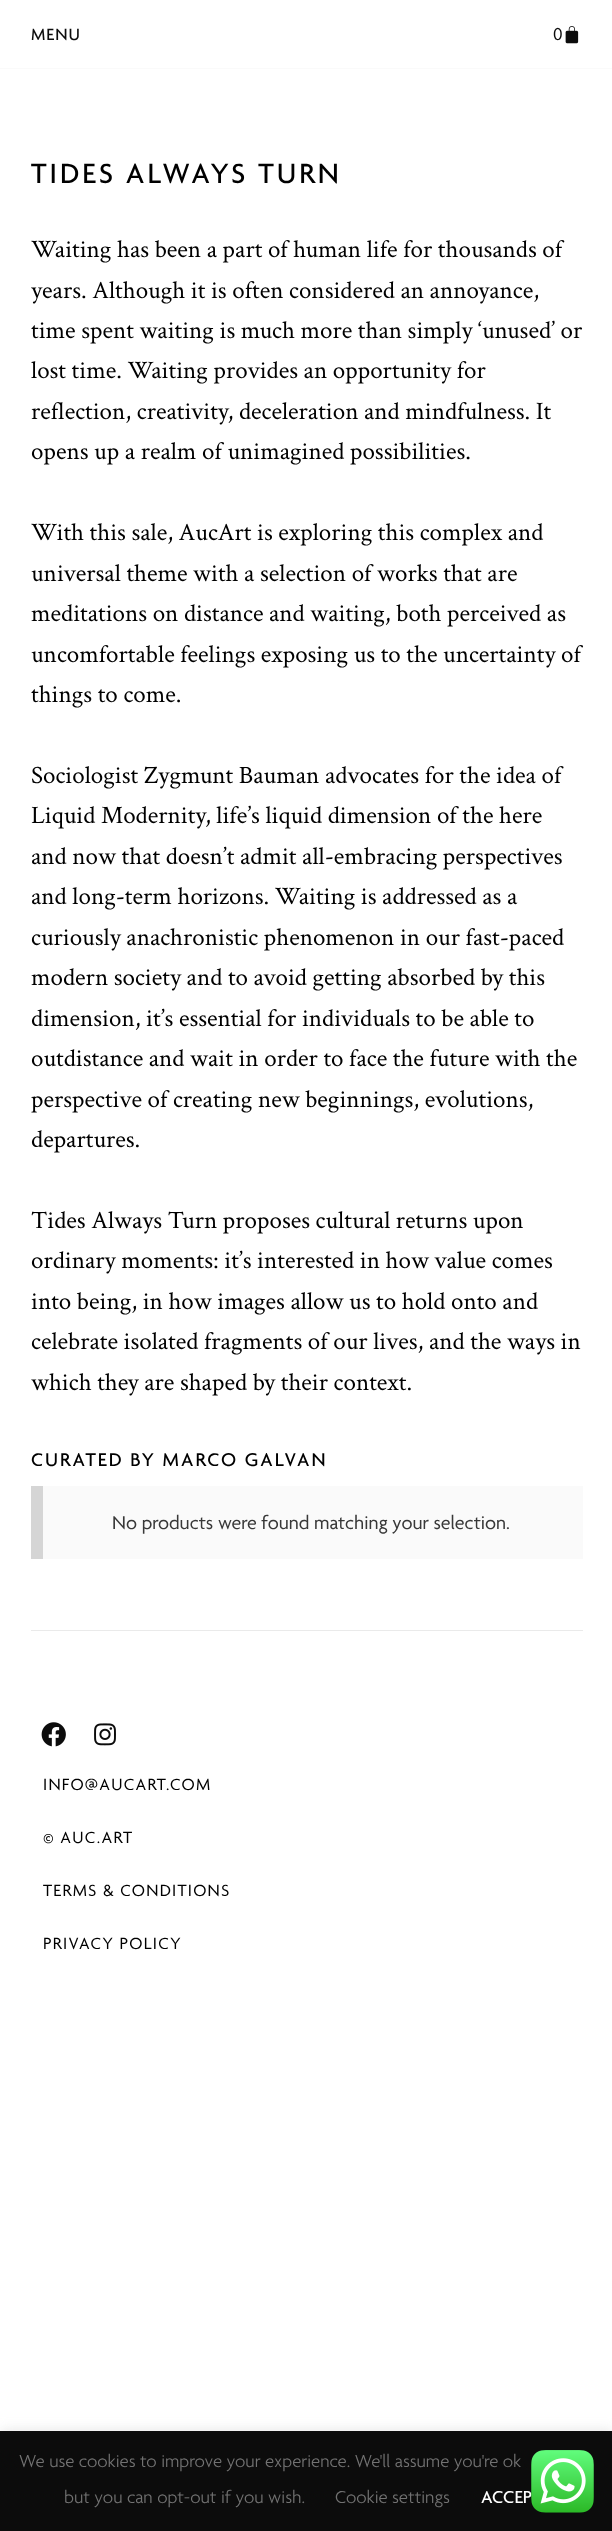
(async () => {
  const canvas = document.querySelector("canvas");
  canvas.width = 612;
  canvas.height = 2531;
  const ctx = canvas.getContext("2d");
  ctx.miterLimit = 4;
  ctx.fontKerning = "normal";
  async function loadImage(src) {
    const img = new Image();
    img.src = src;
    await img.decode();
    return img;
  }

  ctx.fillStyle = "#ffffff";
  ctx.fillRect(0, 0, 612, 2531);
  ctx.fillStyle = "#fafafa";
  ctx.fillRect(0, 68, 612, 1);
  ctx.drawImage(await loadImage("img/1.png"), 565, 26, 14, 18);
  for (const [x, y, w, h, color] of [
    [43, 1486, 540, 73, "#fafafa"],
    [31, 1486, 12, 73, "#d5d5d5"],
    [31, 1630, 552, 1, "#eaeaea"],
  ]) {
    ctx.fillStyle = color;
    ctx.fillRect(x, y, w, h);
  }
  ctx.drawImage(await loadImage("img/2.png"), 41, 1722, 25, 25);
  ctx.drawImage(await loadImage("img/3.png"), 94, 1723, 22, 23);
  ctx.fillStyle = "rgba(172, 171, 171, 0.3)";
  ctx.filter = "blur(6px)";
  ctx.beginPath();
  ctx.rect(0, 2430, 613, 100);
  ctx.fill();
  ctx.filter = "none";
  ctx.fillStyle = "#0c0c0c";
  ctx.fillRect(0, 2431, 612, 100);
  ctx.letterSpacing = "1px";
  ctx.font = "500 17.5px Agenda";
  ctx.fillText("MENU", 31, 40);
  ctx.letterSpacing = "0px";
  ctx.font = "18.75px Agenda";
  ctx.fillText("0", 553, 40);
  ctx.letterSpacing = "3px";
  ctx.font = "500 30px Agenda";
  ctx.fillStyle = "#000000";
  ctx.fillText("TIDES ALWAYS TURN", 31, 183);
  ctx.letterSpacing = "0px";
  ctx.font = "25px Crimson Text";
  for (const [text, x, y] of [
    ["Waiting has been a part of human life for thousands of", 31, 257],
    ["years. Although it is often considered an annoyance,", 31, 298],
    ["time spent waiting is much more than simply ‘unused’ or", 31, 338],
    ["lost time. Waiting provides an opportunity for", 31, 378],
    ["reflection, creativity, deceleration and mindfulness. It", 31, 419],
    ["opens up a realm of unimagined possibilities.", 31, 459],
    ["With this sale, AucArt is exploring this complex and", 31, 540],
    ["universal theme with a selection of works that are", 31, 581],
    ["meditations on distance and waiting, both perceived as", 31, 621],
    ["uncomfortable feelings exposing us to the uncertainty of", 31, 662],
    ["things to come.", 31, 702],
    ["Sociologist Zygmunt Bauman advocates for the idea of", 31, 783],
    ["Liquid Modernity, life’s liquid dimension of the here", 31, 823],
    ["and now that doesn’t admit all-embracing perspectives", 31, 864],
    ["and long-term horizons. Waiting is addressed as a", 31, 904],
    ["curiously anachronistic phenomenon in our fast-paced", 31, 945],
    ["modern society and to avoid getting absorbed by this", 31, 985],
    ["dimension, it’s essential for individuals to be able to", 31, 1026],
    ["outdistance and wait in order to face the future with the", 31, 1066],
    ["perspective of creating new beginnings, evolutions,", 31, 1107],
    ["departures.", 31, 1147],
    ["Tides Always Turn proposes cultural returns upon", 31, 1228],
    ["ordinary moments: it’s interested in how value comes", 31, 1268],
    ["into being, in how images allow us to hold onto and", 31, 1309],
    ["celebrate isolated fragments of our lives, and the ways in", 31, 1349],
    ["which they are shaped by their context.", 31, 1390],
  ]) {
    ctx.fillText(text, x, y);
  }
  ctx.letterSpacing = "2px";
  ctx.font = "500 20px Agenda";
  ctx.fillText("CURATED BY MARCO GALVAN", 31, 1466);
  ctx.letterSpacing = "0px";
  ctx.font = "20px Agenda";
  ctx.fillStyle = "#383838";
  ctx.fillText("No products were found matching your selection.", 112, 1529);
  ctx.letterSpacing = "1.25px";
  ctx.font = "17.5px Agenda";
  ctx.fillStyle = "#000000";
  for (const [text, x, y] of [
    ["INFO@AUCART.COM", 43, 1790],
    ["© AUC.ART", 43, 1843],
    ["TERMS & CONDITIONS", 43, 1896],
    ["PRIVACY POLICY", 43, 1949],
  ]) {
    ctx.fillText(text, x, y);
  }
  ctx.letterSpacing = "0px";
  ctx.font = "300 18.75px Agenda";
  ctx.fillStyle = "#727272";
  for (const [text, x, y] of [
    ["We use cookies to improve your experience. We'll assume you're ok", 19, 2467],
    ["but you can opt-out if you wish.", 64, 2503],
    ["Cookie settings", 335, 2503],
  ]) {
    ctx.fillText(text, x, y);
  }
  ctx.font = "500 18.75px Agenda";
  ctx.fillStyle = "#ffffff";
  ctx.fillText("ACCEP", 481, 2503);
  ctx.drawImage(await loadImage("img/4.png"), 531, 2450, 63, 63);
})();
